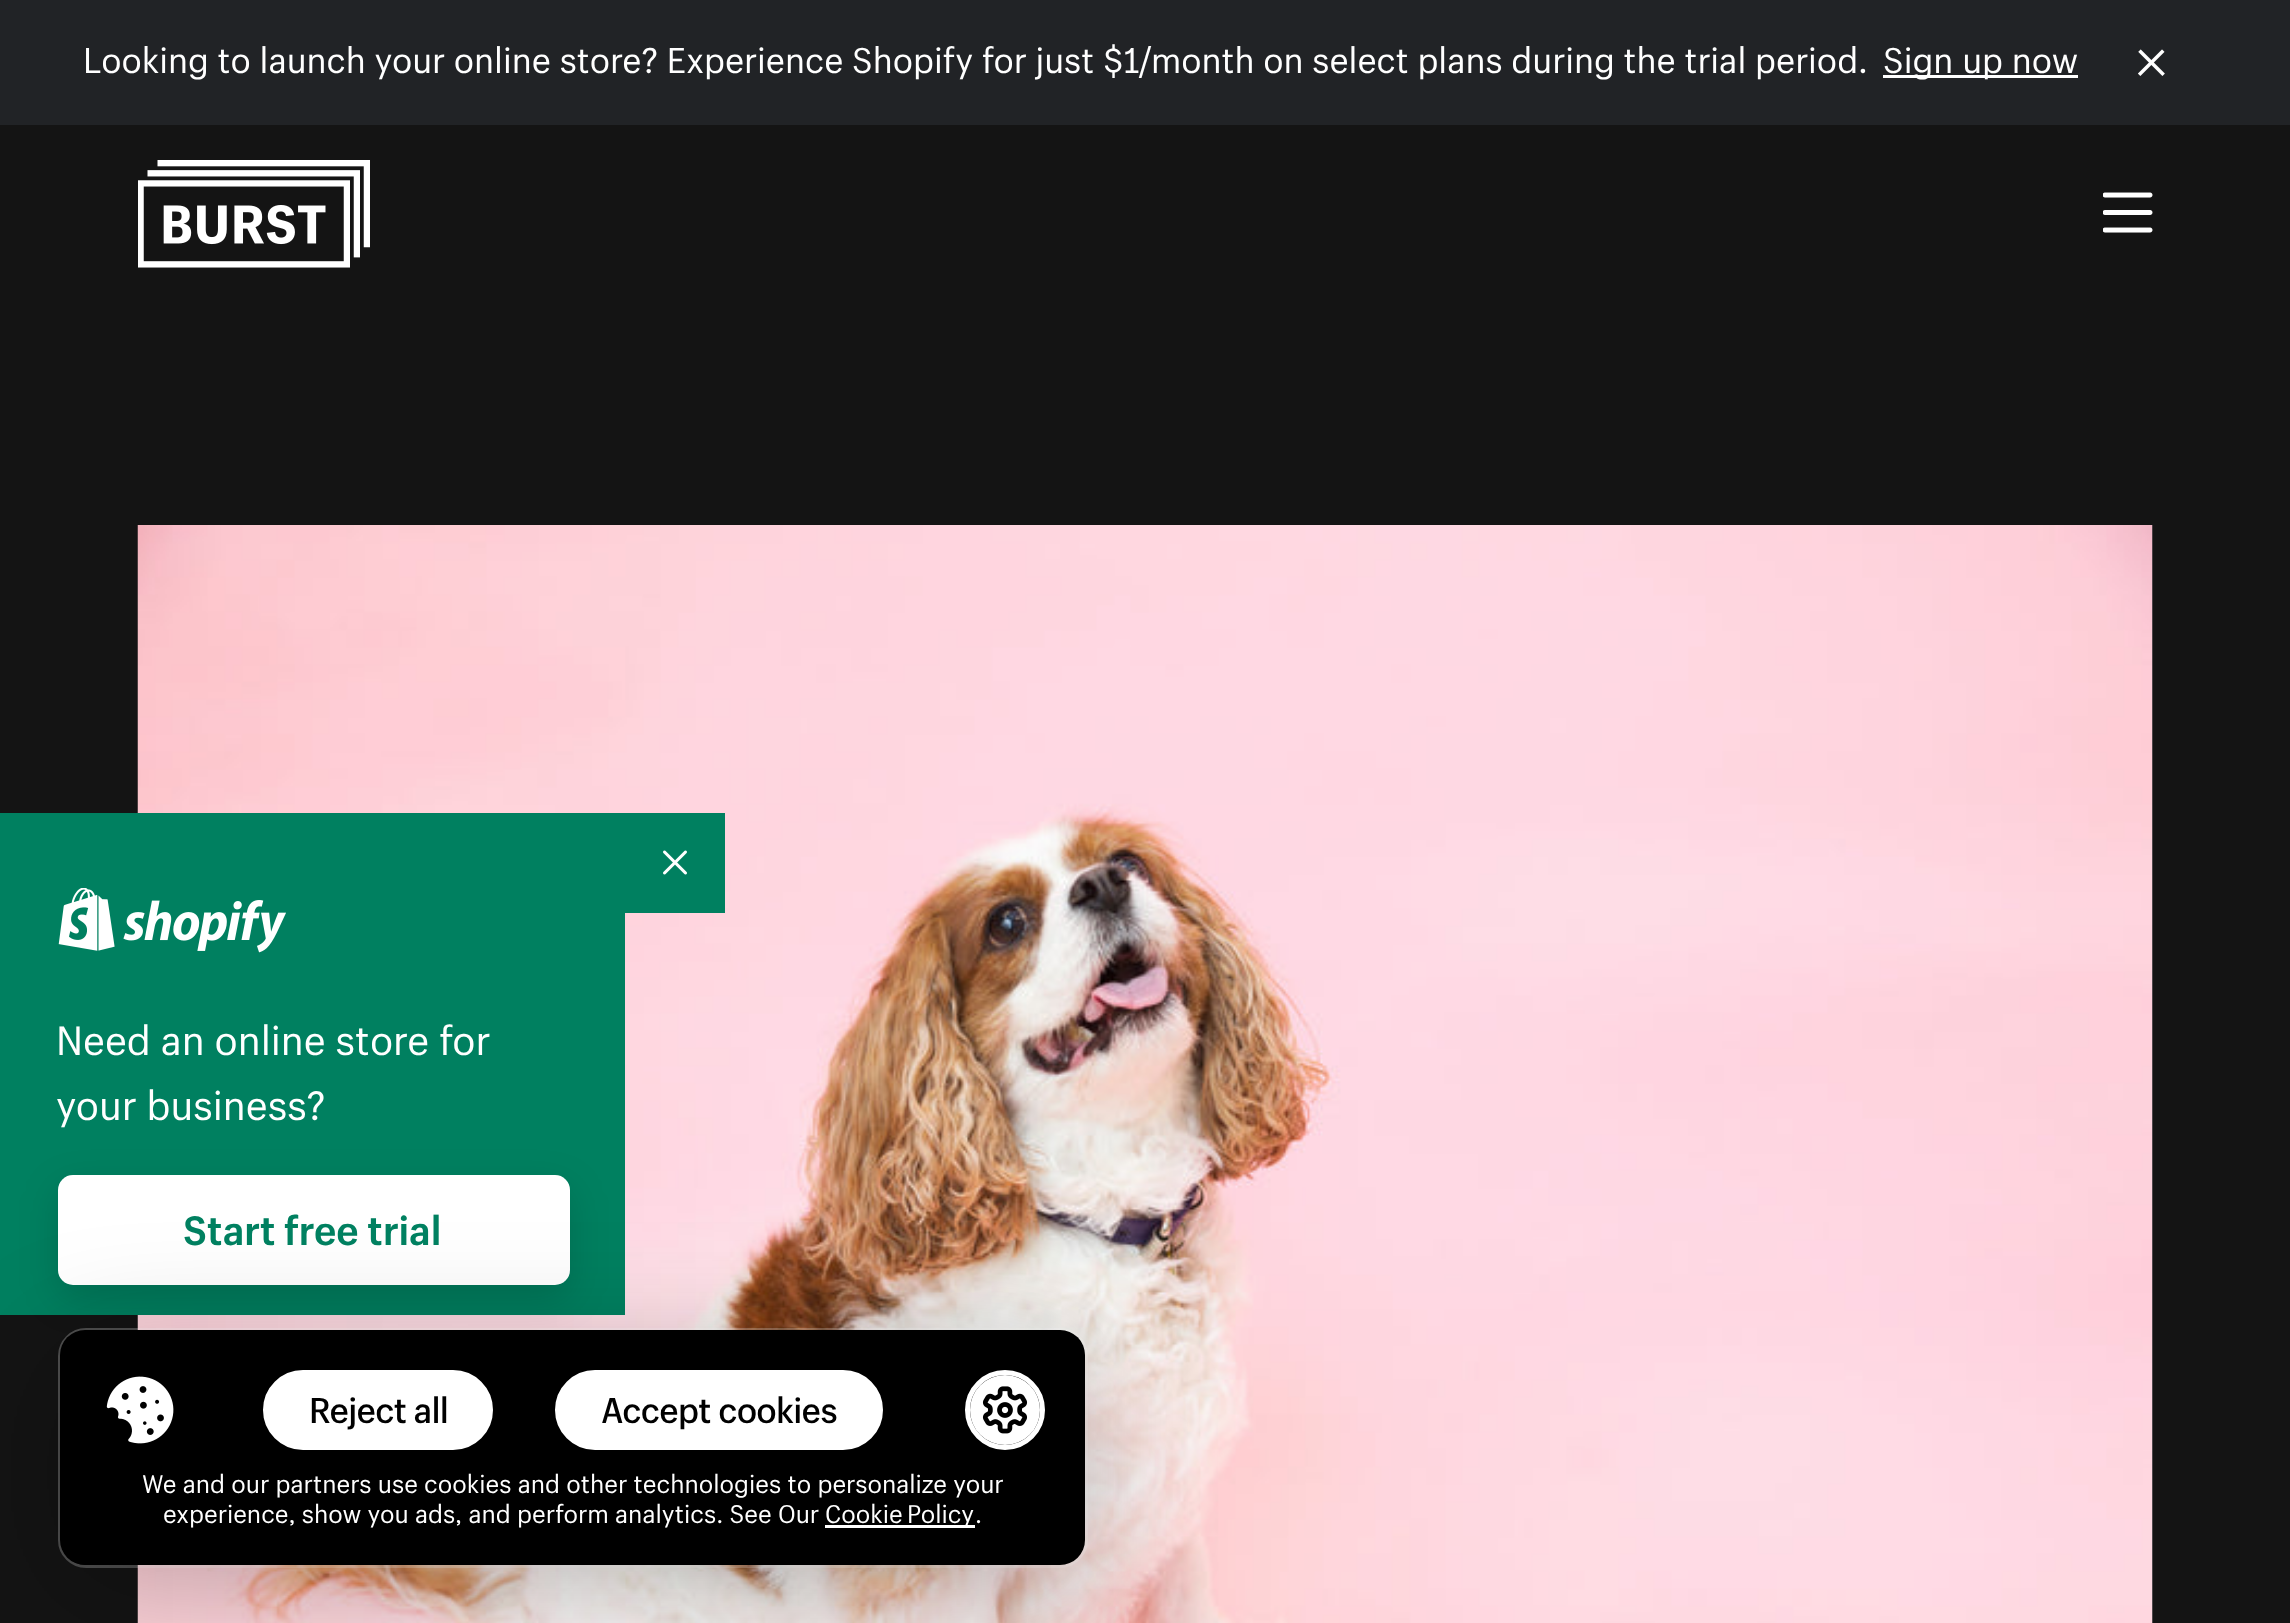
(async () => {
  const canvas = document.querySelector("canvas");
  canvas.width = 2290;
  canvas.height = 1623;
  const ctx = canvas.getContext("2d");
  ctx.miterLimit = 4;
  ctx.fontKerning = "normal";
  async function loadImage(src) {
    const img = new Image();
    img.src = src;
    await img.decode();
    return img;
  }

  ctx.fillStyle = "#141414";
  ctx.fillRect(0, 0, 2290, 1623);
  ctx.fillStyle = "#212326";
  ctx.fillRect(0, 0, 2290, 125);
  ctx.fillStyle = "#ffffff";
  ctx.fillRect(1883, 75, 195, 3);
  ctx.drawImage(await loadImage("img/1.png"), 2138, 49, 27, 27);
  ctx.drawImage(await loadImage("img/2.png"), 138, 160, 232, 108);
  ctx.drawImage(await loadImage("img/3.png"), 2103, 192, 50, 41);
  ctx.fillStyle = "#16191b";
  ctx.fillRect(2152, 525, 1, 1098);
  ctx.drawImage(await loadImage("img/4.png"), 137, 525, 2016, 1098);
  ctx.fillStyle = "#008060";
  ctx.fillRect(625, 813, 100, 100);
  ctx.drawImage(await loadImage("img/5.png"), 663, 850, 24, 25);
  ctx.fillRect(0, 813, 625, 502);
  ctx.drawImage(await loadImage("img/6.png"), 58, 888, 228, 65);
  ctx.fillStyle = "rgba(0, 0, 0, 0.15)";
  ctx.filter = "blur(19px)";
  ctx.beginPath();
  ctx.roundRect(58, 1188, 512, 110, 15);
  ctx.fill();
  ctx.filter = "none";
  ctx.fillStyle = "#ffffff";
  ctx.beginPath();
  ctx.roundRect(58, 1175, 512, 110, 15);
  ctx.fill();
  ctx.beginPath();
  ctx.roundRect(59.5, 1329.5, 1027, 237, 26.5);
  ctx.strokeStyle = "rgba(255, 255, 255, 0.25)";
  ctx.lineWidth = 3;
  ctx.stroke();
  ctx.fillStyle = "rgba(0, 0, 0, 0.25)";
  ctx.filter = "blur(62.5px)";
  ctx.beginPath();
  ctx.roundRect(60, 1355, 1025, 235, 25);
  ctx.fill();
  ctx.filter = "none";
  ctx.fillStyle = "#000000";
  ctx.beginPath();
  ctx.roundRect(60, 1330, 1025, 235, 25);
  ctx.fill();
  ctx.drawImage(await loadImage("img/7.png"), 106, 1376, 68, 68);
  ctx.fillStyle = "#ffffff";
  ctx.beginPath();
  ctx.roundRect(265.5, 1372.5, 225, 75, 37.5);
  ctx.fill();
  ctx.strokeStyle = "#ffffff";
  ctx.lineWidth = 5;
  ctx.stroke();
  ctx.beginPath();
  ctx.roundRect(557.5, 1372.5, 323, 75, 37.5);
  ctx.fill();
  ctx.stroke();
  ctx.beginPath();
  ctx.arc(1005, 1410, 37.5, 0, Math.PI * 2);
  ctx.stroke();
  ctx.beginPath();
  ctx.arc(1005, 1410, 35, 0, Math.PI * 2);
  ctx.fill();
  ctx.drawImage(await loadImage("img/8.png"), 982, 1386, 46, 48);
  ctx.fillRect(825, 1525, 150, 3);
  ctx.font = "35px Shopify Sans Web";
  ctx.fillText("Looking to launch your online store? Experience Shopify for just $1/month on select plans during the trial period.", 83, 73);
  ctx.fillText("Sign up now", 1883, 73);
  ctx.font = "40px Shopify Sans Web";
  ctx.fillText("Need an online store for", 56, 1055);
  ctx.fillText("your business?", 56, 1120);
  ctx.font = "bold 40px Shopify Sans Web";
  ctx.fillStyle = "#008060";
  ctx.fillText("Start free trial", 183, 1245);
  ctx.letterSpacing = "-0.75px";
  ctx.font = "500 35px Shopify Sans";
  ctx.fillStyle = "#000000";
  ctx.fillText("Reject all", 309, 1423);
  ctx.fillText("Accept cookies", 601, 1423);
  ctx.letterSpacing = "0px";
  ctx.font = "25px Shopify Sans Web";
  ctx.fillStyle = "#ffffff";
  ctx.fillText("We and our partners use cookies and other technologies to personalize your", 142, 1493);
  ctx.fillText("experience, show you ads, and perform analytics. See Our", 163, 1523);
  ctx.wordSpacing = "-2px";
  ctx.fillText("Cookie Policy", 825, 1523);
  ctx.wordSpacing = "0px";
  ctx.fillText(".", 975, 1523);
})();
